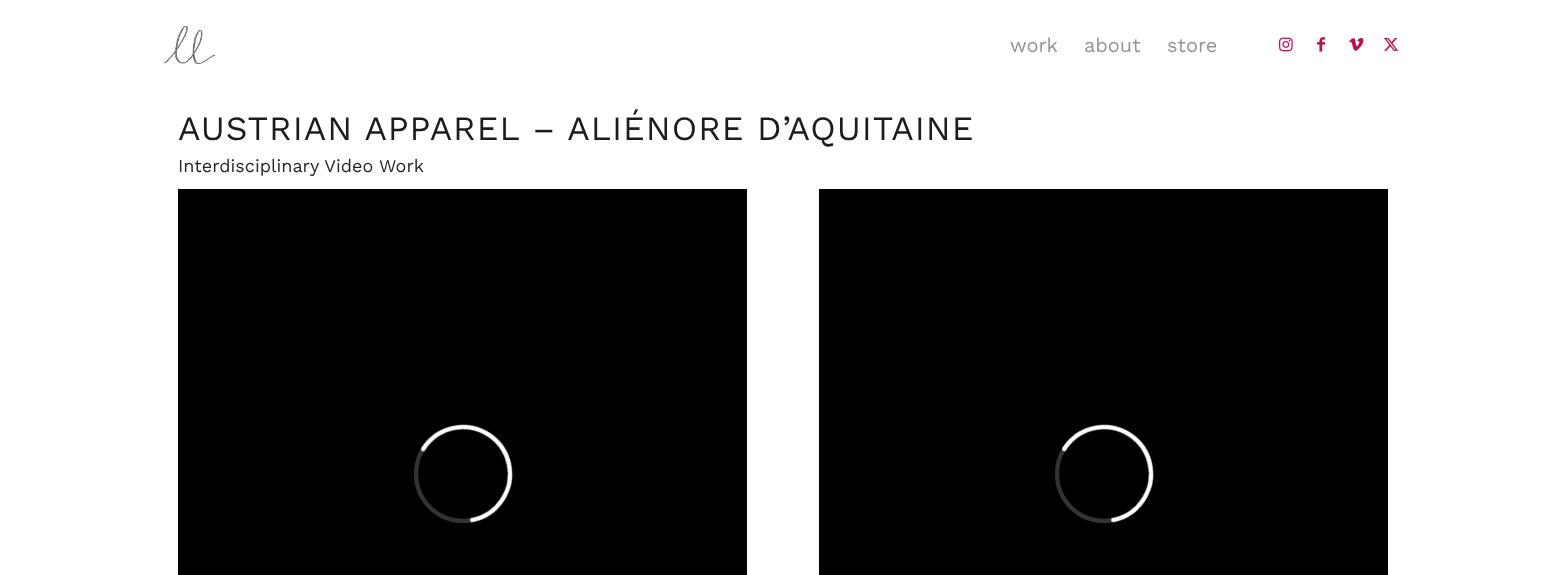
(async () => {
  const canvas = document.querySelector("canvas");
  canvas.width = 1565;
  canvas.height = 575;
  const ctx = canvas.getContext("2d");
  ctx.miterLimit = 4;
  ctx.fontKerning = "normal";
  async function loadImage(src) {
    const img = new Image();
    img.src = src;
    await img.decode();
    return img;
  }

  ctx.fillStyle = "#ffffff";
  ctx.fillRect(0, 0, 1565, 575);
  ctx.drawImage(await loadImage("img/1.png"), 164, 26, 51, 38);
  ctx.drawImage(await loadImage("img/2.png"), 1279, 37, 14, 15);
  ctx.drawImage(await loadImage("img/3.png"), 1317, 37, 8, 15);
  ctx.drawImage(await loadImage("img/4.png"), 1349, 38, 15, 13);
  ctx.drawImage(await loadImage("img/5.png"), 1384, 37, 15, 14);
  ctx.fillStyle = "#000000";
  ctx.fillRect(178, 189, 236, 386);
  ctx.drawImage(await loadImage("img/6.png"), 414, 189, 333, 386);
  ctx.fillRect(819, 189, 236, 386);
  ctx.drawImage(await loadImage("img/7.png"), 1055, 189, 333, 386);
  ctx.font = "20px Work Sans";
  ctx.fillStyle = "#949494";
  for (const [text, x, y] of [
    ["work", 1010, 52],
    ["about", 1084, 52],
    ["store", 1167, 52],
  ]) {
    ctx.fillText(text, x, y);
  }
  ctx.letterSpacing = "1px";
  ctx.font = "34px Work Sans";
  ctx.fillStyle = "#1c1c1c";
  ctx.fillText("AUSTRIAN APPAREL – ALIÉNORE D’AQUITAINE", 178, 140);
  ctx.letterSpacing = "0px";
  ctx.font = "18px Work Sans";
  ctx.fillStyle = "#242424";
  ctx.fillText("Interdisciplinary Video Work", 178, 172);
})();
